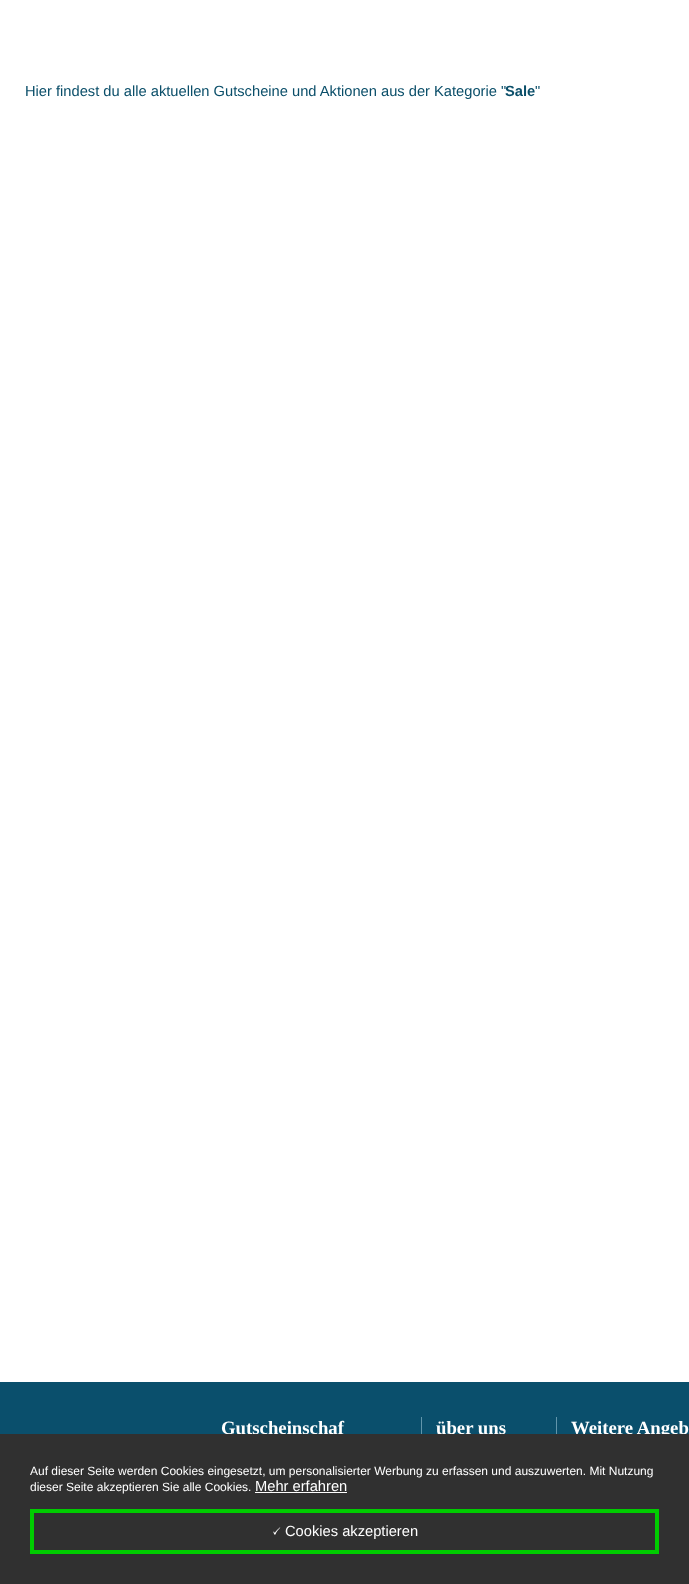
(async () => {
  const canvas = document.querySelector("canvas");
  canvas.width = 689;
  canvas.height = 1584;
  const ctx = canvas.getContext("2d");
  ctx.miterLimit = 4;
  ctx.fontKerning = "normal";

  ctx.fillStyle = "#ffffff";
  ctx.fillRect(0, 0, 689, 1584);
  for (const [x, y, w, h, color] of [
    [0, 1382, 689, 52, "#0a4f6c"],
    [421, 1417, 1, 17, "#6195ab"],
    [556, 1417, 1, 17, "#6195ab"],
  ]) {
    ctx.fillStyle = color;
    ctx.fillRect(x, y, w, h);
  }
  ctx.font = "14.7px Liberation Sans";
  ctx.fillStyle = "#0a4e69";
  ctx.fillText("Hier findest du alle aktuellen Gutscheine und Aktionen aus der Kategorie \"", 25, 96);
  ctx.font = "bold 14.7px Liberation Sans";
  ctx.fillText("Sale", 505, 96);
  ctx.font = "14.7px Liberation Sans";
  ctx.fillText("\"", 535, 96);
  ctx.font = "bold 18.75px Liberation Serif";
  ctx.fillStyle = "#ffffff";
  for (const [text, x, y] of [
    ["Gutscheinschaf", 221, 1434],
    ["über uns", 436, 1434],
    ["Weitere Angeb", 571, 1434],
  ]) {
    ctx.fillText(text, x, y);
  }
  ctx.fillStyle = "#303030";
  ctx.fillRect(0, 1434, 689, 150);
  ctx.font = "12px Liberation Sans";
  ctx.fillStyle = "#ffffff";
  ctx.fillText("Auf dieser Seite werden Cookies eingesetzt, um personalisierter Werbung zu erfassen und auszuwerten. Mit Nutzung", 30, 1475);
  ctx.fillText("dieser Seite akzeptieren Sie alle Cookies.", 30, 1491);
  ctx.font = "14.7px Liberation Sans";
  ctx.fillText("Mehr erfahren", 255, 1491);
  ctx.fillRect(255, 1492, 92, 1);
  ctx.strokeStyle = "#00cc00";
  ctx.lineWidth = 4;
  ctx.strokeRect(32, 1511, 625, 41);
  ctx.font = "14.7px FreeSerif";
  ctx.fillText("🗸", 271, 1536);
  ctx.font = "14.7px Liberation Sans";
  ctx.fillText("Cookies akzeptieren", 285, 1536);
})();
